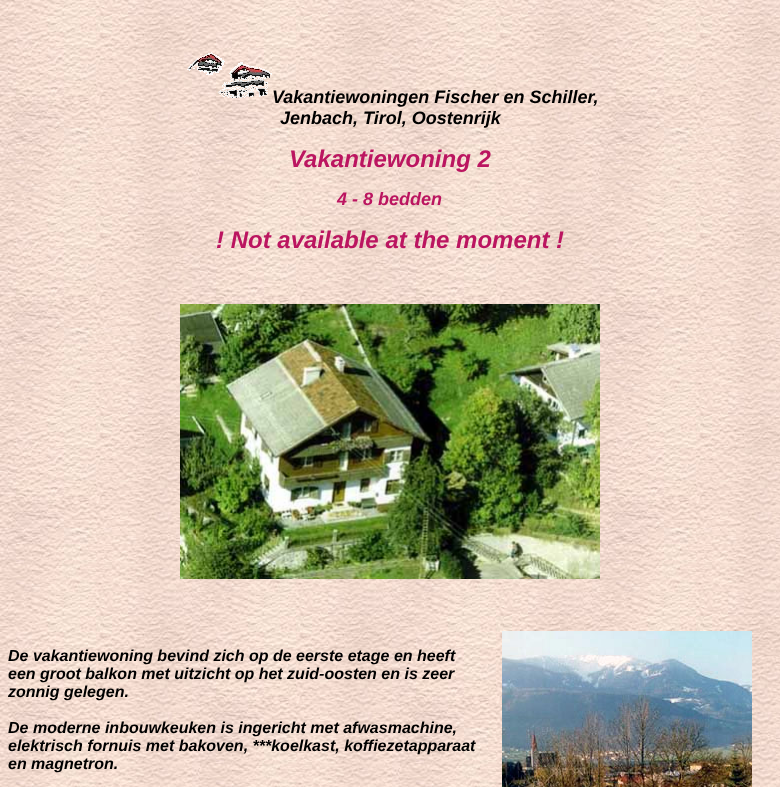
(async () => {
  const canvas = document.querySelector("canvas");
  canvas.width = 780;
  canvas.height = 787;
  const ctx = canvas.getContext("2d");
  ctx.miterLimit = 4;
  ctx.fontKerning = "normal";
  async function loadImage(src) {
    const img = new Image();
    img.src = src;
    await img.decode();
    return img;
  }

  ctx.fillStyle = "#ffffff";
  ctx.fillRect(0, 0, 780, 787);
  ctx.drawImage(await loadImage("img/1.png"), 0, 0, 780, 787);
  ctx.drawImage(await loadImage("img/2.png"), 187, 52, 85, 46);
  ctx.drawImage(await loadImage("img/3.png"), 180, 304, 420, 275);
  ctx.drawImage(await loadImage("img/4.png"), 502, 631, 250, 156);
  ctx.font = "italic bold 18px Liberation Sans";
  ctx.fillStyle = "#000000";
  ctx.fillText("Vakantiewoningen Fischer en Schiller,", 272, 103);
  ctx.fillText("Jenbach, Tirol, Oostenrijk", 280, 124);
  ctx.font = "italic bold 24px Liberation Sans";
  ctx.fillStyle = "#bb1560";
  ctx.fillText("Vakantiewoning 2", 289, 167);
  ctx.font = "italic bold 18px Liberation Sans";
  ctx.fillText("4 - 8 bedden", 337, 205);
  ctx.font = "italic bold 24px Liberation Sans";
  ctx.fillText("! Not available at the moment !", 216, 248);
  ctx.font = "italic bold 16px Liberation Sans";
  ctx.fillStyle = "#000000";
  for (const [text, x, y] of [
    ["De vakantiewoning bevind zich op de eerste etage en heeft", 8, 661],
    ["een groot balkon met uitzicht op het zuid-oosten en is zeer", 8, 679],
    ["zonnig gelegen.", 8, 697],
    ["De moderne inbouwkeuken is ingericht met afwasmachine,", 8, 733],
    ["elektrisch fornuis met bakoven, ***koelkast, koffiezetapparaat", 8, 751],
    ["en magnetron.", 8, 769],
  ]) {
    ctx.fillText(text, x, y);
  }
})();
